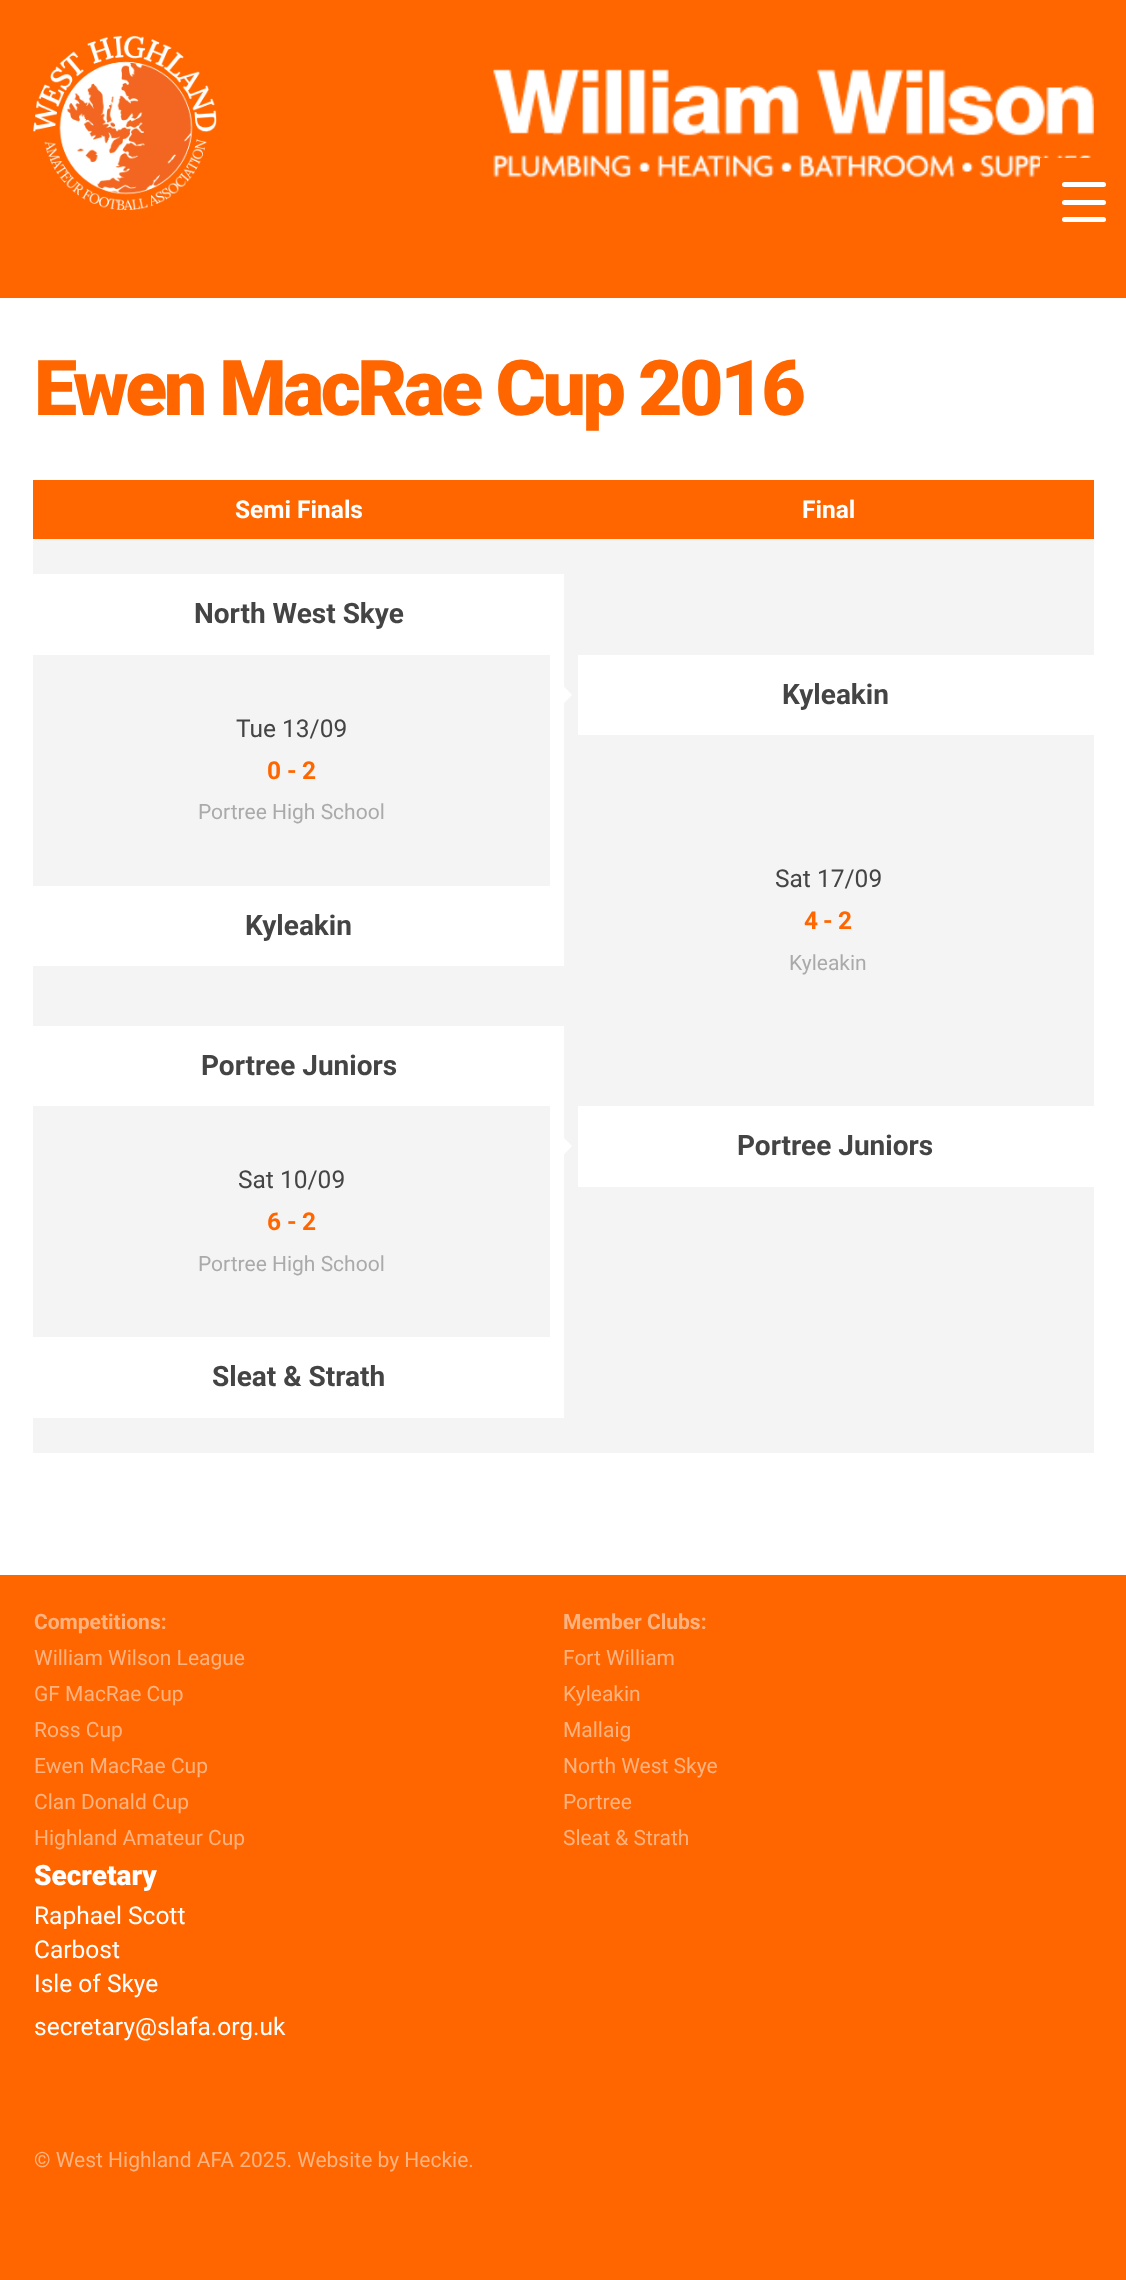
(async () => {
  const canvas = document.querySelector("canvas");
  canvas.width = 1126;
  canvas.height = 2280;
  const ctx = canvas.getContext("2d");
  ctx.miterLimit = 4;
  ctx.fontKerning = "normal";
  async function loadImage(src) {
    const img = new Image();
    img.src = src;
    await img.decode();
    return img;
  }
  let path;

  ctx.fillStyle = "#ff6600";
  ctx.fillRect(0, 0, 1126, 2280);
  ctx.drawImage(await loadImage("img/1.png"), 33, 35, 184, 175);
  ctx.drawImage(await loadImage("img/2.png"), 493, 69, 601, 109);
  ctx.fillRect(1040, 158, 53, 20);
  ctx.fillStyle = "#ffffff";
  ctx.beginPath();
  ctx.roundRect(1062, 200, 44, 5, 2.5);
  ctx.fill();
  ctx.beginPath();
  ctx.roundRect(1062, 182, 44, 5, 2.5);
  ctx.fill();
  ctx.beginPath();
  ctx.roundRect(1062, 217, 44, 5, 2.5);
  ctx.fill();
  for (const [x, y, w, h, color] of [
    [0, 298, 1126, 1277, "#ffffff"],
    [33, 480, 1061, 59, "#ff6600"],
    [33, 539, 531, 35, "#f4f4f4"],
    [564, 539, 530, 116, "#f4f4f4"],
    [564, 655, 14, 80, "#f4f4f4"],
  ]) {
    ctx.fillStyle = color;
    ctx.fillRect(x, y, w, h);
  }
  ctx.fillStyle = "#ffffff";
  path = new Path2D("M563.5 703.5V686L572 695Z");
  ctx.fill(path);
  for (const [x, y, w, h, color] of [
    [33, 655, 517, 231, "#f4f4f4"],
    [564, 735, 530, 371, "#f4f4f4"],
    [33, 966, 531, 60, "#f4f4f4"],
    [564, 1106, 14, 81, "#f4f4f4"],
  ]) {
    ctx.fillStyle = color;
    ctx.fillRect(x, y, w, h);
  }
  ctx.fillStyle = "#ffffff";
  path = new Path2D("M563.5 1155V1137.5L572 1146Z");
  ctx.fill(path);
  for (const [x, y, w, h, color] of [
    [33, 1106, 517, 231, "#f4f4f4"],
    [564, 1187, 530, 266, "#f4f4f4"],
    [33, 1418, 531, 35, "#f4f4f4"],
  ]) {
    ctx.fillStyle = color;
    ctx.fillRect(x, y, w, h);
  }
  ctx.letterSpacing = "-3.5px";
  ctx.font = "900 77px Roboto";
  ctx.fillStyle = "#ff6600";
  ctx.fillText("Ewen MacRae Cup 2016", 34, 415);
  ctx.letterSpacing = "0px";
  ctx.font = "bold 24.5px Roboto";
  ctx.fillStyle = "#ffffff";
  ctx.fillText("Semi Finals", 235, 518);
  ctx.fillText("Final", 802, 518);
  ctx.font = "bold 28px Roboto";
  ctx.fillStyle = "#444444";
  ctx.fillText("North West Skye", 194, 623);
  ctx.fillText("Kyleakin", 782, 704);
  ctx.font = "24.5px Roboto";
  ctx.fillText("Tue 13/09", 236, 737);
  ctx.font = "bold 24.5px Roboto";
  ctx.fillStyle = "#ff6600";
  for (const [text, x, y] of [
    ["0", 267, 779],
    ["-", 287, 779],
    ["2", 302, 779],
  ]) {
    ctx.fillText(text, x, y);
  }
  ctx.font = "21px Roboto";
  ctx.fillStyle = "#aaaaaa";
  ctx.fillText("Portree High School", 198, 819);
  ctx.font = "bold 28px Roboto";
  ctx.fillStyle = "#444444";
  ctx.fillText("Kyleakin", 245, 935);
  ctx.font = "24.5px Roboto";
  ctx.fillText("Sat 17/09", 775, 887);
  ctx.font = "bold 24.5px Roboto";
  ctx.fillStyle = "#ff6600";
  for (const [text, x, y] of [
    ["4", 804, 929],
    ["-", 823, 929],
    ["2", 838, 929],
  ]) {
    ctx.fillText(text, x, y);
  }
  ctx.font = "21px Roboto";
  ctx.fillStyle = "#aaaaaa";
  ctx.fillText("Kyleakin", 789, 970);
  ctx.font = "bold 28px Roboto";
  ctx.fillStyle = "#444444";
  ctx.fillText("Portree Juniors", 201, 1075);
  ctx.fillText("Portree Juniors", 737, 1155);
  ctx.font = "24.5px Roboto";
  ctx.fillText("Sat 10/09", 238, 1188);
  ctx.font = "bold 24.5px Roboto";
  ctx.fillStyle = "#ff6600";
  for (const [text, x, y] of [
    ["6", 267, 1230],
    ["-", 287, 1230],
    ["2", 302, 1230],
  ]) {
    ctx.fillText(text, x, y);
  }
  ctx.font = "21px Roboto";
  ctx.fillStyle = "#aaaaaa";
  ctx.fillText("Portree High School", 198, 1271);
  ctx.font = "bold 28px Roboto";
  ctx.fillStyle = "#444444";
  ctx.fillText("Sleat & Strath", 212, 1386);
  ctx.font = "bold 21px Roboto";
  ctx.fillStyle = "#ffb380";
  ctx.fillText("Competitions:", 34, 1629);
  ctx.font = "21px Roboto";
  for (const [text, x, y] of [
    ["William Wilson League", 34, 1665],
    ["GF MacRae Cup", 34, 1701],
    ["Ross Cup", 34, 1737],
    ["Ewen MacRae Cup", 34, 1773],
    ["Clan Donald Cup", 34, 1809],
    ["Highland Amateur Cup", 34, 1845],
  ]) {
    ctx.fillText(text, x, y);
  }
  ctx.font = "bold 21px Roboto";
  ctx.fillText("Member Clubs:", 563, 1629);
  ctx.font = "21px Roboto";
  for (const [text, x, y] of [
    ["Fort William", 563, 1665],
    ["Kyleakin", 563, 1701],
    ["Mallaig", 563, 1737],
    ["North West Skye", 563, 1773],
    ["Portree", 563, 1809],
    ["Sleat & Strath", 563, 1845],
  ]) {
    ctx.fillText(text, x, y);
  }
  ctx.font = "900 28px Roboto";
  ctx.fillStyle = "#ffffff";
  ctx.fillText("Secretary", 34, 1885);
  ctx.font = "24.5px Roboto";
  for (const [text, x, y] of [
    ["Raphael Scott", 34, 1924],
    ["Carbost", 34, 1958],
    ["Isle of Skye", 34, 1992],
    ["secretary@slafa.org.uk", 34, 2035],
  ]) {
    ctx.fillText(text, x, y);
  }
  ctx.font = "21px Roboto";
  ctx.fillStyle = "#ffb380";
  ctx.fillText("© West Highland AFA 2025. Website by Heckie.", 34, 2167);
})();
